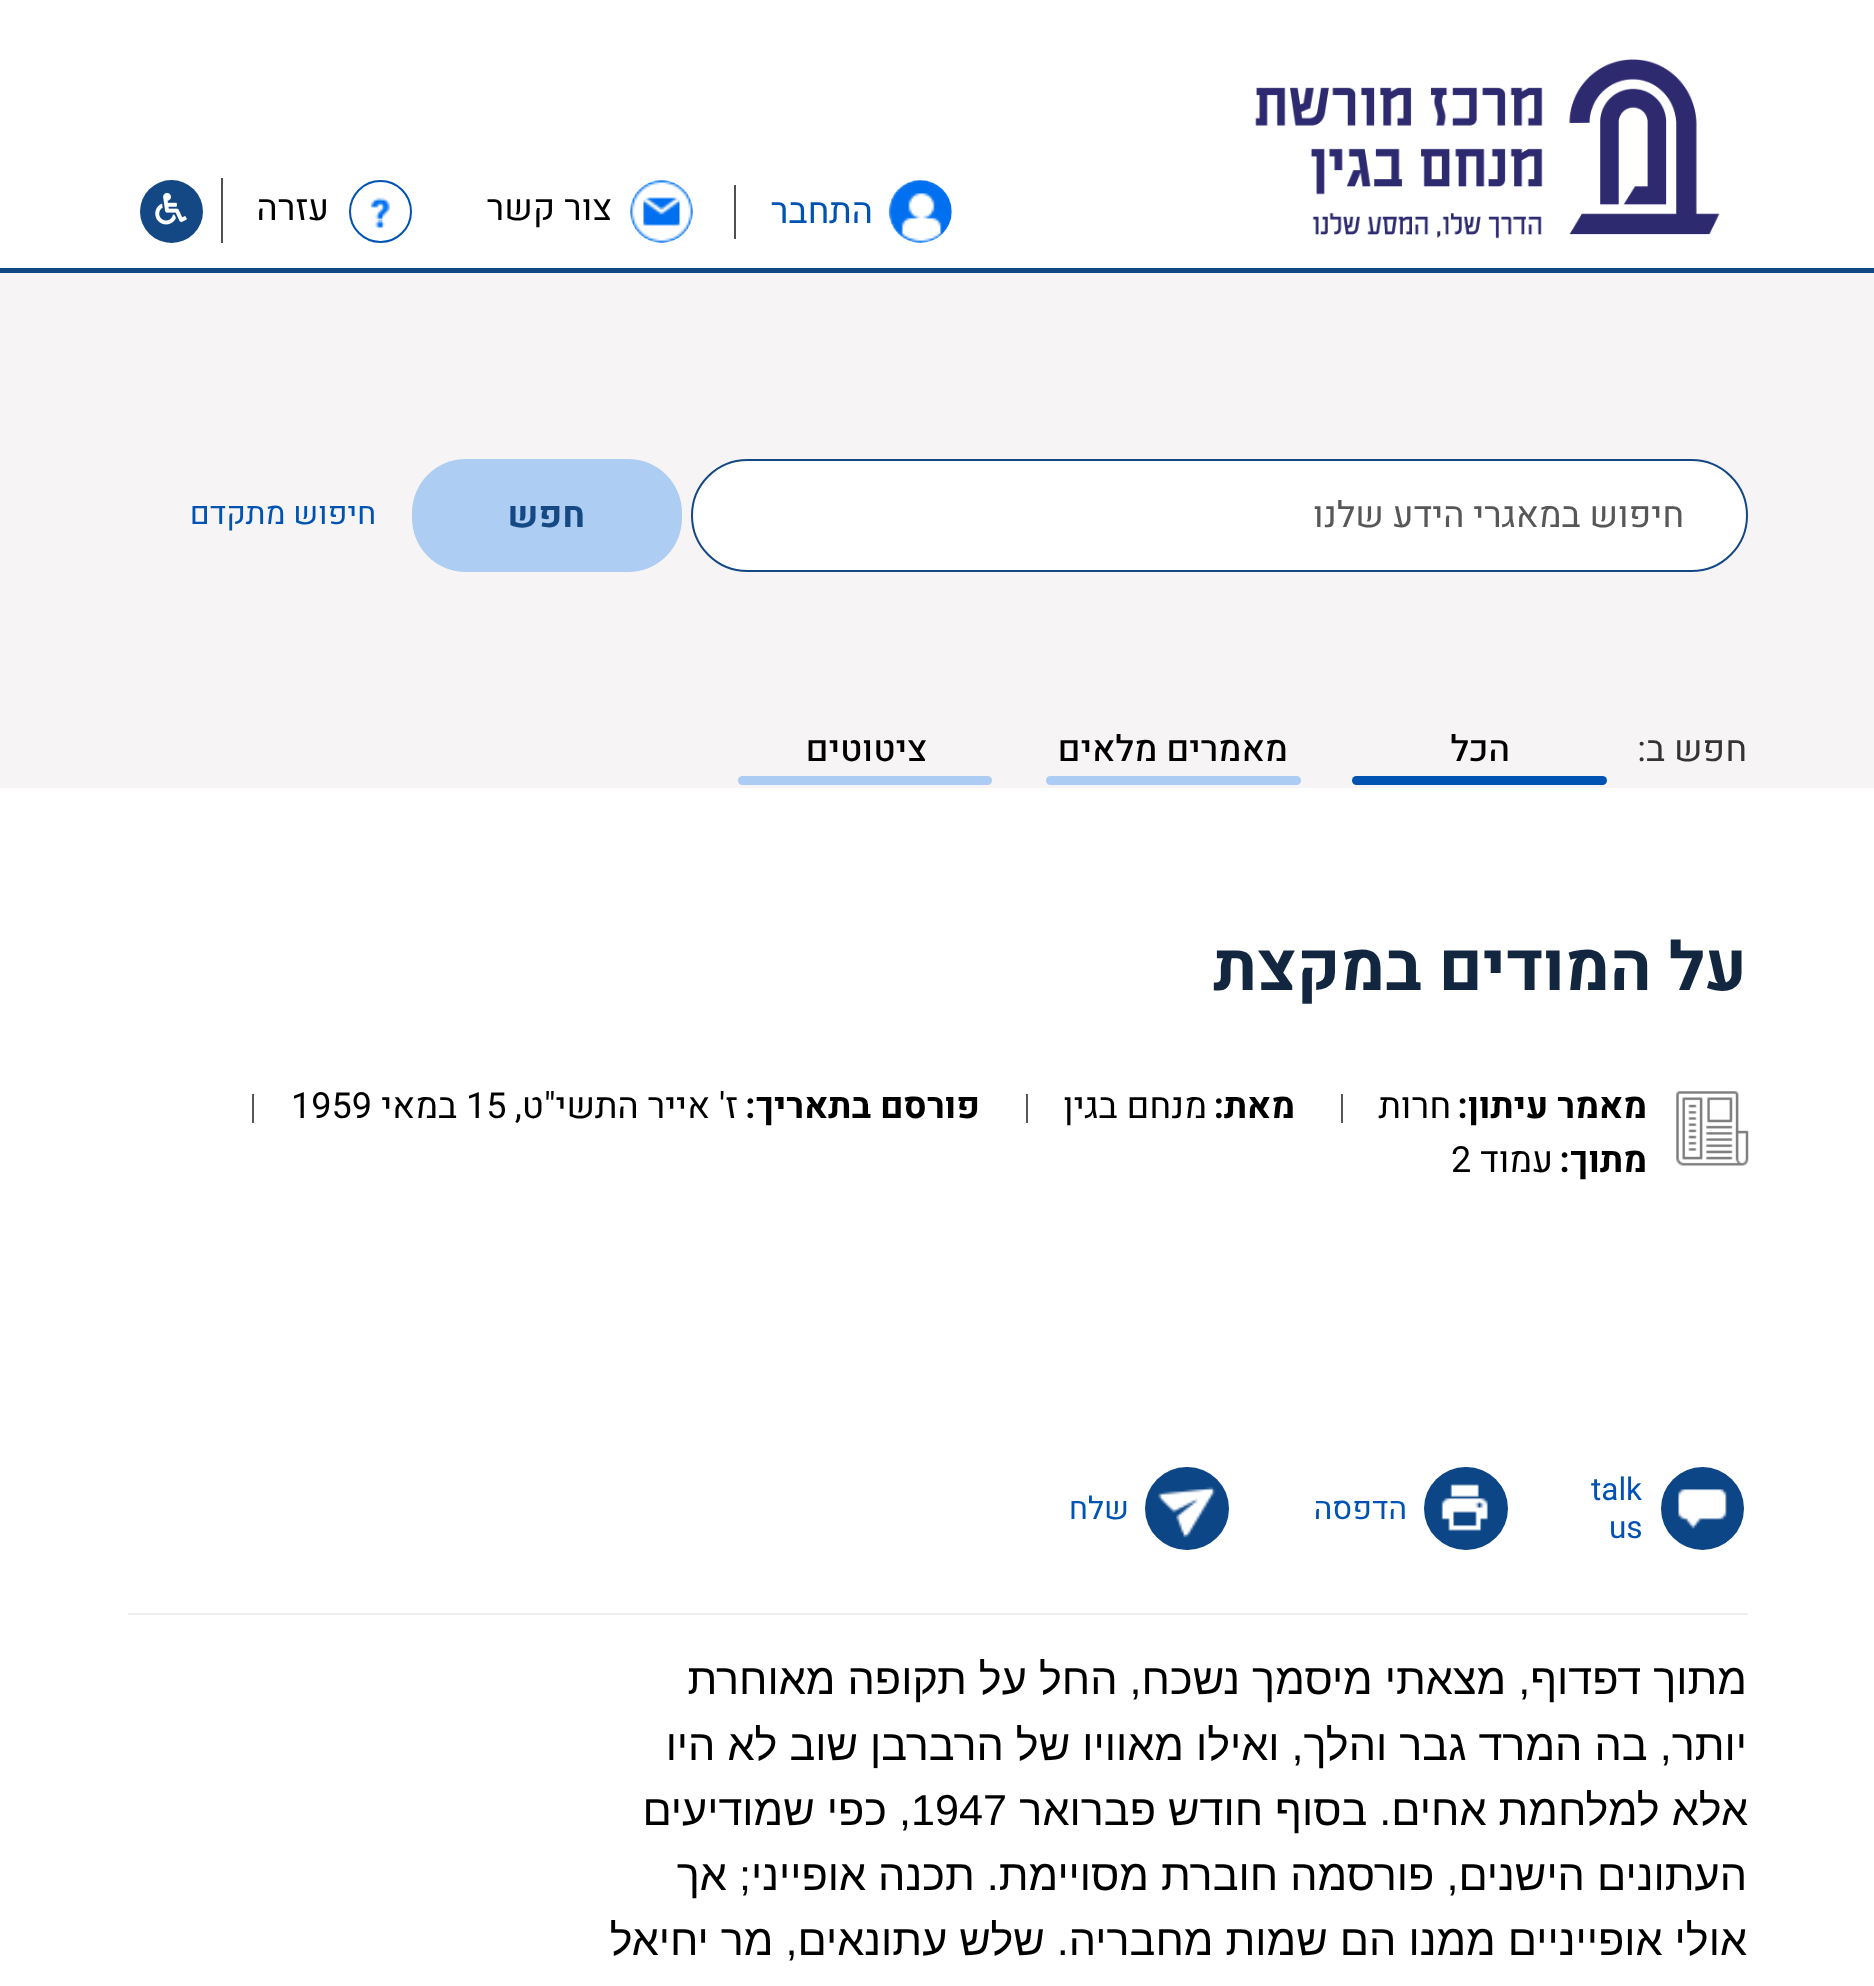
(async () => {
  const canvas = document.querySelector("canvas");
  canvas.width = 1874;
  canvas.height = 1986;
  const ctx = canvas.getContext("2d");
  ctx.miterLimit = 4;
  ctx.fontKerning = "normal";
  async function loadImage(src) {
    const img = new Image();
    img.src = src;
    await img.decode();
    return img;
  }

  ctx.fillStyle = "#ffffff";
  ctx.fillRect(0, 0, 1874, 1986);
  ctx.drawImage(await loadImage("img/1.png"), 1255, 59, 465, 180);
  ctx.drawImage(await loadImage("img/2.png"), 888, 180, 64, 63);
  ctx.fillStyle = "#4f5050";
  ctx.fillRect(734, 185, 2, 54);
  ctx.drawImage(await loadImage("img/3.png"), 630, 180, 63, 63);
  ctx.fillRect(221, 178, 2, 65);
  ctx.drawImage(await loadImage("img/4.png"), 370, 197, 20, 33);
  ctx.beginPath();
  ctx.arc(380.5, 211.5, 30.5, 0, Math.PI * 2);
  ctx.strokeStyle = "#0053b3";
  ctx.lineWidth = 2;
  ctx.stroke();
  ctx.fillStyle = "#144885";
  ctx.beginPath();
  ctx.arc(171.5, 211.5, 31.5, 0, Math.PI * 2);
  ctx.fill();
  ctx.drawImage(await loadImage("img/5.png"), 155, 192, 32, 33);
  ctx.fillStyle = "#f6f4f4";
  ctx.fillRect(0, 273, 1874, 515);
  ctx.fillStyle = "#134884";
  ctx.fillRect(0, 268, 1874, 5);
  ctx.fillStyle = "#ffffff";
  ctx.beginPath();
  ctx.roundRect(692, 460, 1055, 111, 55.5);
  ctx.fill();
  ctx.strokeStyle = "#134884";
  ctx.stroke();
  ctx.fillStyle = "#aecdf3";
  ctx.beginPath();
  ctx.roundRect(412, 459, 270, 113, 54);
  ctx.fill();
  ctx.fillStyle = "#0053b3";
  ctx.beginPath();
  ctx.roundRect(1352, 776, 255, 9, 4.5);
  ctx.fill();
  ctx.fillStyle = "#acccf3";
  ctx.beginPath();
  ctx.roundRect(1046, 776, 255, 9, 4.5);
  ctx.fill();
  ctx.beginPath();
  ctx.roundRect(738, 776, 254, 9, 4.5);
  ctx.fill();
  ctx.drawImage(await loadImage("img/6.png"), 1676, 1091, 73, 75);
  for (const [x, y, w, h, color] of [
    [1341, 1094, 2, 29, "#575757"],
    [1026, 1094, 2, 29, "#575757"],
    [252, 1094, 2, 29, "#575757"],
  ]) {
    ctx.fillStyle = color;
    ctx.fillRect(x, y, w, h);
  }
  ctx.fillStyle = "#0c4686";
  ctx.beginPath();
  ctx.arc(1702.5, 1508.5, 41.5, 0, Math.PI * 2);
  ctx.fill();
  ctx.drawImage(await loadImage("img/7.png"), 1678, 1489, 49, 40);
  ctx.beginPath();
  ctx.roundRect(1424, 1467, 84, 83, 41.5);
  ctx.fill();
  ctx.drawImage(await loadImage("img/8.png"), 1441, 1484, 47, 47);
  ctx.beginPath();
  ctx.roundRect(1145, 1467, 84, 83, 41.5);
  ctx.fill();
  ctx.drawImage(await loadImage("img/9.png"), 1158, 1486, 58, 52);
  ctx.fillStyle = "#eeeeee";
  ctx.fillRect(128, 1613, 1620, 2);
  ctx.direction = "rtl";
  ctx.font = "36px Heebo";
  ctx.fillStyle = "#0053b3";
  ctx.fillText("התחבר", 873, 223);
  ctx.fillStyle = "#000000";
  ctx.fillText("צור קשר", 612, 220);
  ctx.fillText("עזרה", 329, 220);
  ctx.fillStyle = "#575757";
  ctx.fillText("חיפוש במאגרי הידע שלנו", 1684, 527);
  ctx.font = "bold 36px Heebo";
  ctx.fillStyle = "#144984";
  ctx.fillText("חפש", 585, 527);
  ctx.font = "31.5px Heebo";
  ctx.fillStyle = "#0053b3";
  ctx.fillText("חיפוש מתקדם", 376, 524);
  ctx.font = "36px Heebo";
  ctx.fillStyle = "#333333";
  ctx.fillText("חפש ב:", 1747, 761);
  ctx.font = "500 36px Heebo";
  ctx.fillStyle = "#000000";
  for (const [text, x, y] of [
    ["הכל", 1510, 761],
    ["מאמרים מלאים", 1288, 761],
    ["ציטוטים", 927, 761],
  ]) {
    ctx.fillText(text, x, y);
  }
  ctx.font = "bold 67.5px Heebo";
  ctx.fillStyle = "#12273f";
  ctx.fillText("על המודים במקצת", 1747, 990);
  ctx.font = "bold 36px Heebo";
  ctx.fillStyle = "#000000";
  ctx.fillText("מאמר עיתון:", 1647, 1118);
  ctx.font = "36px Heebo";
  ctx.fillText("חרות", 1451, 1118);
  ctx.font = "bold 36px Heebo";
  ctx.fillText("מאת:", 1295, 1118);
  ctx.font = "36px Heebo";
  ctx.fillText("מנחם בגין", 1207, 1118);
  ctx.font = "bold 36px Heebo";
  ctx.fillText("פורסם בתאריך:", 980, 1118);
  ctx.font = "36px Heebo";
  ctx.fillText("ז' אייר התשי\"ט,", 738, 1118);
  ctx.direction = "ltr";
  ctx.fillText("15", 466, 1118);
  ctx.direction = "rtl";
  ctx.fillText("במאי", 457, 1118);
  ctx.direction = "ltr";
  ctx.fillText("1959", 291, 1118);
  ctx.direction = "rtl";
  ctx.font = "bold 36px Heebo";
  ctx.fillText("מתוך:", 1647, 1172);
  ctx.font = "36px Heebo";
  ctx.fillText("עמוד", 1553, 1172);
  ctx.direction = "ltr";
  ctx.fillText("2", 1451, 1172);
  ctx.font = "31.5px Heebo";
  ctx.fillStyle = "#0053b3";
  ctx.fillText("talk", 1591, 1500);
  ctx.fillText("us", 1609, 1538);
  ctx.direction = "rtl";
  ctx.fillText("הדפסה", 1407, 1519);
  ctx.fillText("שלח", 1129, 1519);
  ctx.font = "43.2px Liberation Sans";
  ctx.fillStyle = "#000000";
  for (const [text, x, y] of [
    ["מתוך דפדוף, מצאתי מיסמך נשכח, החל על תקופה מאוחרת", 1747, 1694],
    ["יותר, בה המרד גבר והלך, ואילו מאוויו של הרברבן שוב לא היו", 1747, 1760],
    ["אלא למלחמת אחים. בסוף חודש פברואר", 1748, 1825],
  ]) {
    ctx.fillText(text, x, y);
  }
  ctx.direction = "ltr";
  ctx.fillText("1947", 911, 1825);
  ctx.direction = "rtl";
  for (const [text, x, y] of [
    [", כפי שמודיעים", 911, 1825],
    ["העתונים הישנים, פורסמה חוברת מסויימת. תכנה אופייני; אך", 1747, 1890],
    ["אולי אופייניים ממנו הם שמות מחבריה. שלש עתונאים, מר יחיאל", 1747, 1955],
  ]) {
    ctx.fillText(text, x, y);
  }
})();
